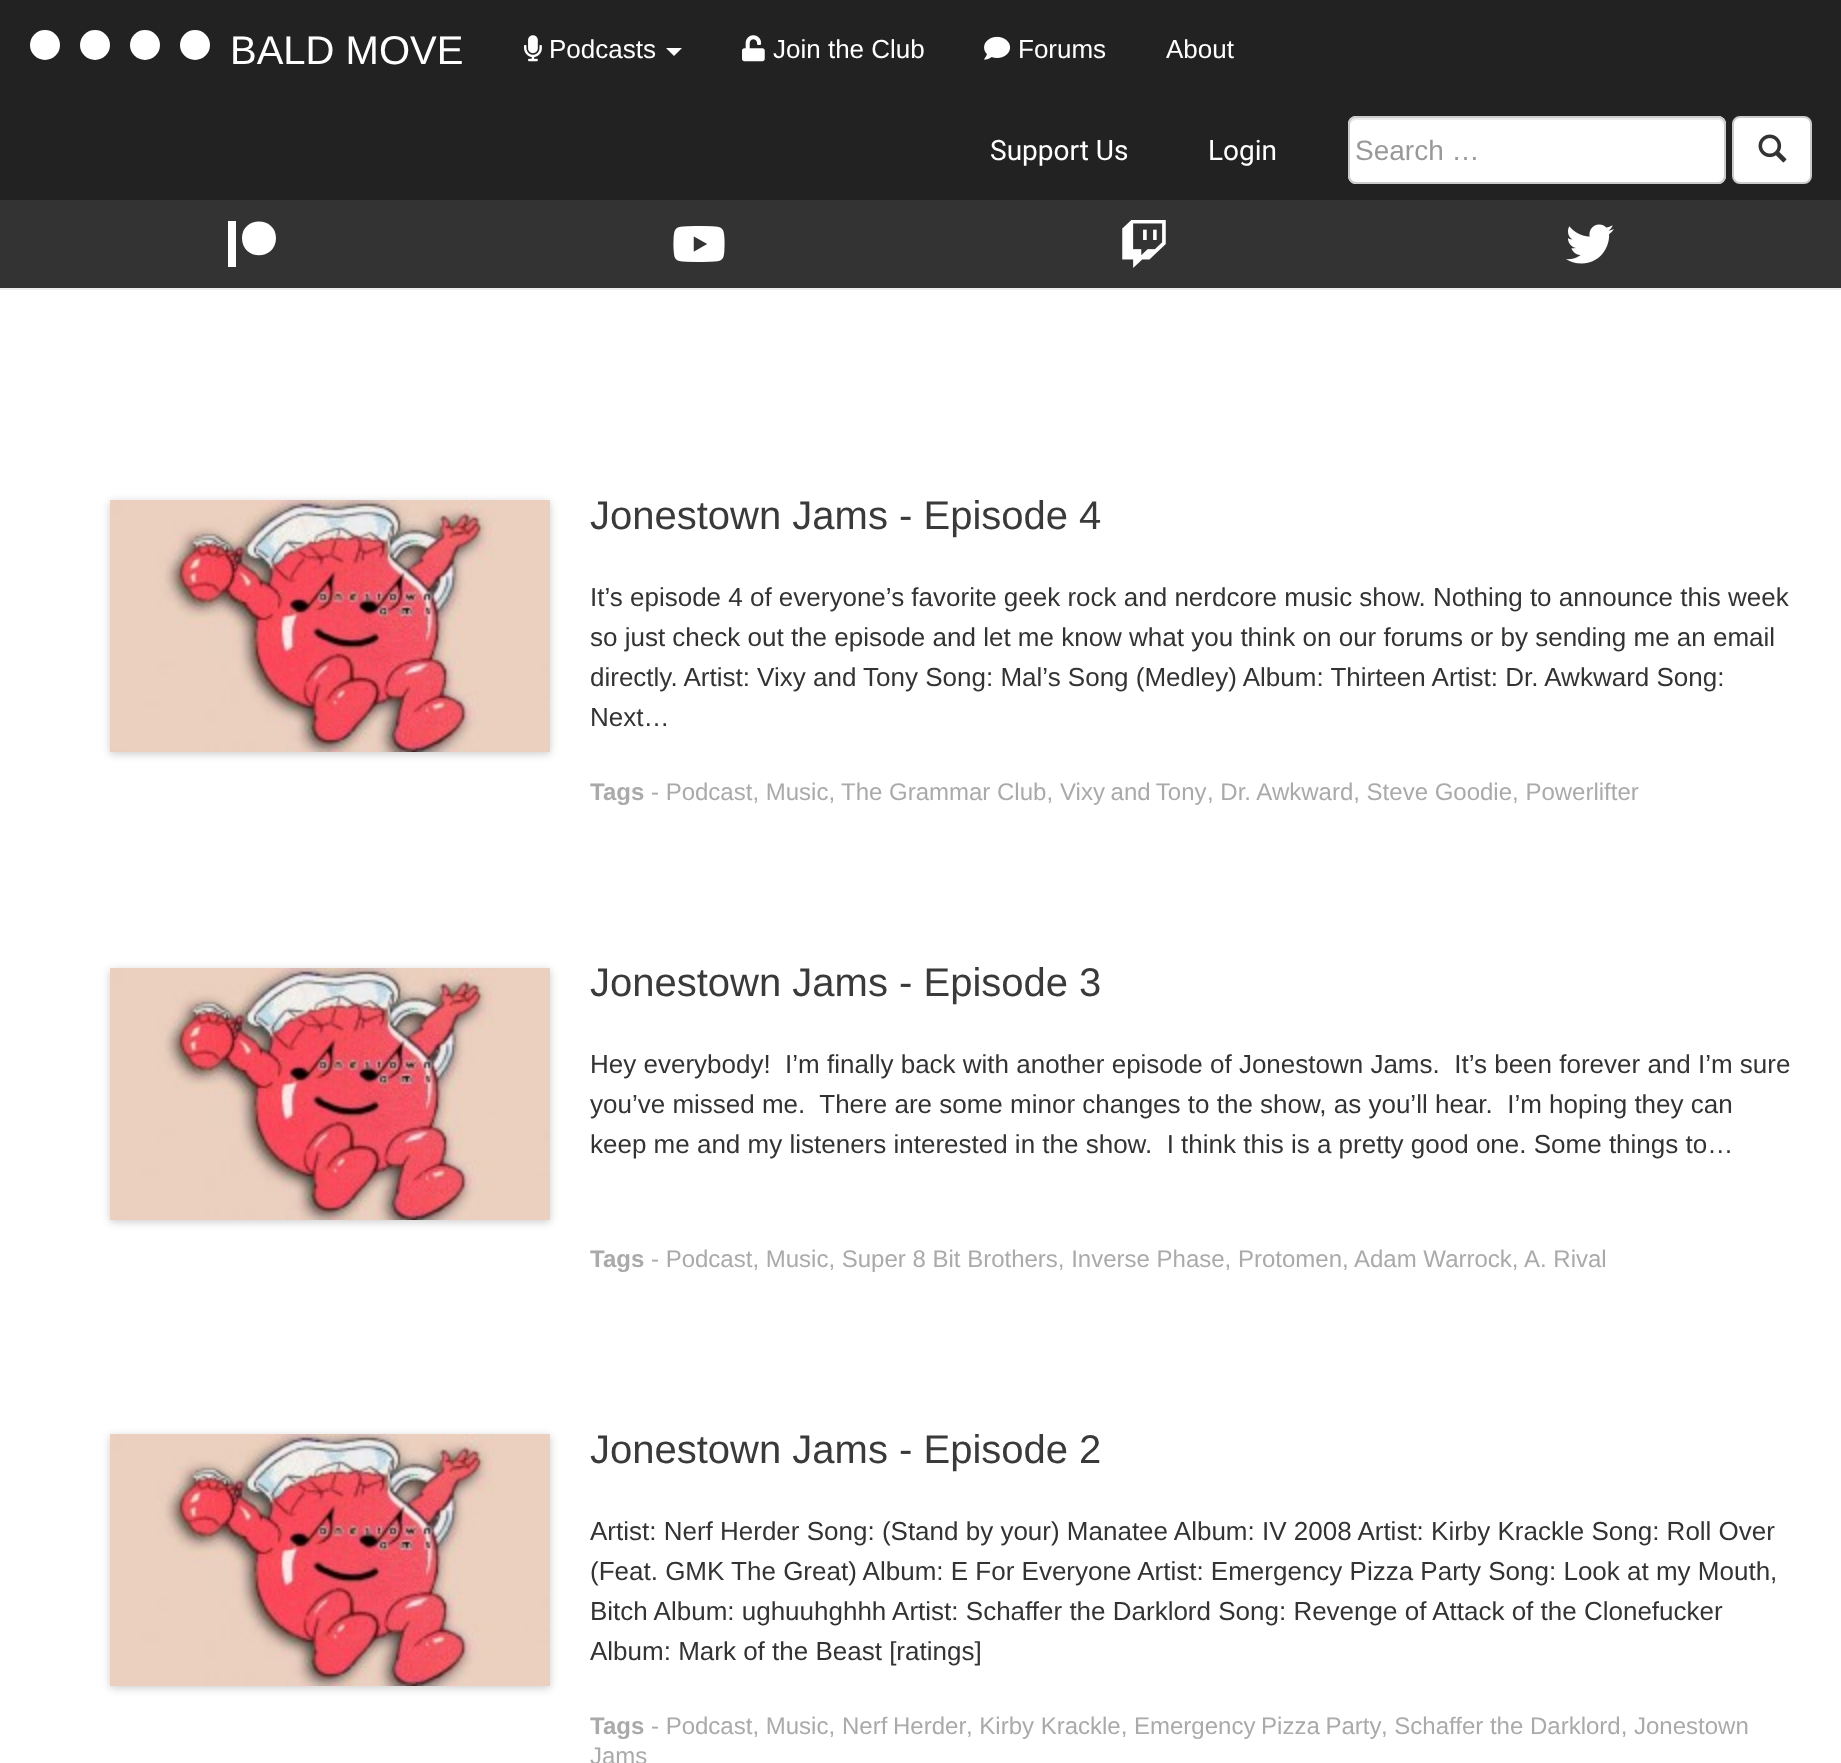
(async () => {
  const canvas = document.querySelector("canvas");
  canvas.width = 1841;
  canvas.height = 1763;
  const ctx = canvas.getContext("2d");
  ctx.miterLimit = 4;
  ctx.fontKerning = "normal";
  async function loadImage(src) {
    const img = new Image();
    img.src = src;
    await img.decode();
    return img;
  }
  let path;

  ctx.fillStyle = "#333333";
  ctx.fillRect(0, 0, 1841, 1763);
  ctx.fillStyle = "#222222";
  ctx.fillRect(0, 0, 1841, 200);
  ctx.fillStyle = "#ffffff";
  ctx.beginPath();
  ctx.arc(45, 45, 15, 0, Math.PI * 2);
  ctx.fill();
  ctx.beginPath();
  ctx.arc(95, 45, 15, 0, Math.PI * 2);
  ctx.fill();
  ctx.beginPath();
  ctx.arc(145, 45, 15, 0, Math.PI * 2);
  ctx.fill();
  ctx.beginPath();
  ctx.arc(195, 45, 15, 0, Math.PI * 2);
  ctx.fill();
  ctx.drawImage(await loadImage("img/1.png"), 524, 35, 18, 27);
  path = new Path2D("M666 48H682L674 56Z");
  ctx.fill(path);
  ctx.drawImage(await loadImage("img/2.png"), 742, 35, 23, 27);
  ctx.drawImage(await loadImage("img/3.png"), 984, 36, 27, 24);
  ctx.beginPath();
  ctx.roundRect(1348, 116, 378, 68, 8);
  ctx.fill();
  ctx.fillStyle = "#ececec";
  path = new Path2D("M1356 120H1718C1721 120 1724 123 1724 126V124C1724 121 1721 118 1718 118H1356C1353 118 1350 121 1350 124V126C1350 123 1353 120 1356 120Z");
  ctx.fill(path);
  ctx.beginPath();
  ctx.roundRect(1349, 117, 376, 66, 7);
  ctx.strokeStyle = "#cccccc";
  ctx.lineWidth = 2;
  ctx.stroke();
  ctx.fillStyle = "#ffffff";
  ctx.beginPath();
  ctx.roundRect(1733, 117, 78, 66, 7);
  ctx.fill();
  ctx.stroke();
  ctx.drawImage(await loadImage("img/4.png"), 1758, 134, 29, 29);
  path = new Path2D("M276 238C276 261 242 261 242 238C242 216 276 216 276 238ZM228 267V221H236V267Z");
  ctx.fill(path);
  ctx.drawImage(await loadImage("img/5.png"), 673, 226, 52, 36);
  ctx.drawImage(await loadImage("img/6.png"), 1122, 220, 44, 48);
  ctx.drawImage(await loadImage("img/7.png"), 1566, 224, 48, 40);
  ctx.fillRect(0, 290, 1841, 1473);
  ctx.fillStyle = "#eeeeee";
  ctx.fillRect(0, 288, 1841, 2);
  ctx.fillStyle = "rgba(0, 0, 0, 0.2)";
  ctx.filter = "blur(4px)";
  ctx.beginPath();
  ctx.rect(110, 502, 440, 252);
  ctx.fill();
  ctx.filter = "none";
  ctx.drawImage(await loadImage("img/8.png"), 110, 500, 440, 252);
  ctx.filter = "blur(4px)";
  ctx.beginPath();
  ctx.rect(110, 970, 440, 252);
  ctx.fill();
  ctx.filter = "none";
  ctx.drawImage(await loadImage("img/8.png"), 110, 968, 440, 252);
  ctx.filter = "blur(4px)";
  ctx.beginPath();
  ctx.rect(110, 1436, 440, 252);
  ctx.fill();
  ctx.filter = "none";
  ctx.drawImage(await loadImage("img/8.png"), 110, 1434, 440, 252);
  ctx.font = "40px Liberation Sans";
  ctx.fillStyle = "#ffffff";
  ctx.fillText("BALD MOVE", 230, 64);
  ctx.font = "26px Liberation Sans";
  for (const [text, x, y] of [
    ["Podcasts", 549, 58],
    ["Join the Club", 773, 58],
    ["Forums", 1018, 58],
    ["About", 1166, 58],
  ]) {
    ctx.fillText(text, x, y);
  }
  ctx.font = "28px Roboto";
  ctx.fillText("Support Us", 990, 160);
  ctx.fillText("Login", 1208, 160);
  ctx.font = "28px Liberation Sans";
  ctx.fillStyle = "#999999";
  ctx.fillText("Search …", 1355, 160);
  ctx.font = "40px Liberation Sans";
  ctx.fillStyle = "#3a3a3a";
  ctx.fillText("Jonestown Jams - Episode 4", 590, 529);
  ctx.font = "26px Liberation Sans";
  ctx.fillStyle = "#333333";
  for (const [text, x, y] of [
    ["It’s episode 4 of everyone’s favorite geek rock and nerdcore music show. Nothing to announce this week", 590, 606],
    ["so just check out the episode and let me know what you think on our forums or by sending me an email", 590, 646],
    ["directly. Artist: Vixy and Tony Song: Mal’s Song (Medley) Album: Thirteen Artist: Dr. Awkward Song:", 590, 686],
    ["Next…", 590, 726],
  ]) {
    ctx.fillText(text, x, y);
  }
  ctx.font = "bold 24px Liberation Sans";
  ctx.fillStyle = "#aaaaaa";
  ctx.fillText("Tags", 590, 800);
  ctx.font = "24px Liberation Sans";
  ctx.fillText("- Podcast, Music,", 651, 800);
  ctx.fillText("The Grammar Club,", 841, 800);
  ctx.wordSpacing = "-1px";
  ctx.fillText("Vixy and Tony", 1060, 800);
  ctx.wordSpacing = "0px";
  ctx.fillText(", Dr. Awkward, Steve Goodie, Powerlifter", 1207, 800);
  ctx.font = "40px Liberation Sans";
  ctx.fillStyle = "#3a3a3a";
  ctx.fillText("Jonestown Jams - Episode 3", 590, 996);
  ctx.font = "26px Liberation Sans";
  ctx.fillStyle = "#333333";
  for (const [text, x, y] of [
    ["Hey everybody!  I’m finally back with another episode of Jonestown Jams.  It’s been forever and I’m sure", 590, 1073],
    ["you’ve missed me.  There are some minor changes to the show, as you’ll hear.  I’m hoping they can", 590, 1113],
    ["keep me and my listeners interested in the show.  I think this is a pretty good one. Some things to…", 590, 1153],
  ]) {
    ctx.fillText(text, x, y);
  }
  ctx.font = "bold 24px Liberation Sans";
  ctx.fillStyle = "#aaaaaa";
  ctx.fillText("Tags", 590, 1267);
  ctx.font = "24px Liberation Sans";
  for (const [text, x, y] of [
    ["- Podcast, Music, Super 8 Bit Brothers, Inverse Phase, Protomen,", 651, 1267],
    ["Adam Warrock,", 1354, 1267],
    ["A. Rival", 1524, 1267],
  ]) {
    ctx.fillText(text, x, y);
  }
  ctx.font = "40px Liberation Sans";
  ctx.fillStyle = "#3a3a3a";
  ctx.fillText("Jonestown Jams - Episode 2", 590, 1463);
  ctx.font = "26px Liberation Sans";
  ctx.fillStyle = "#333333";
  for (const [text, x, y] of [
    ["Artist: Nerf Herder Song: (Stand by your) Manatee Album: IV 2008 Artist: Kirby Krackle Song: Roll Over", 590, 1540],
    ["(Feat. GMK The Great) Album: E For Everyone Artist: Emergency Pizza Party Song: Look at my Mouth,", 590, 1580],
    ["Bitch Album: ughuuhghhh Artist: Schaffer the Darklord Song: Revenge of Attack of the Clonefucker", 590, 1620],
    ["Album: Mark of the Beast [ratings]", 590, 1660],
  ]) {
    ctx.fillText(text, x, y);
  }
  ctx.font = "bold 24px Liberation Sans";
  ctx.fillStyle = "#aaaaaa";
  ctx.fillText("Tags", 590, 1734);
  ctx.font = "24px Liberation Sans";
  ctx.fillText("- Podcast, Music,", 651, 1734);
  ctx.wordSpacing = "-1px";
  ctx.fillText("Nerf Herder", 842, 1734);
  ctx.wordSpacing = "0px";
  ctx.fillText(", Kirby Krackle,", 966, 1734);
  ctx.wordSpacing = "-1px";
  ctx.fillText("Emergency Pizza Party", 1134, 1734);
  ctx.wordSpacing = "0px";
  ctx.fillText(", Schaffer the Darklord, Jonestown", 1381, 1734);
  ctx.fillText("Jams", 590, 1764);
})();
